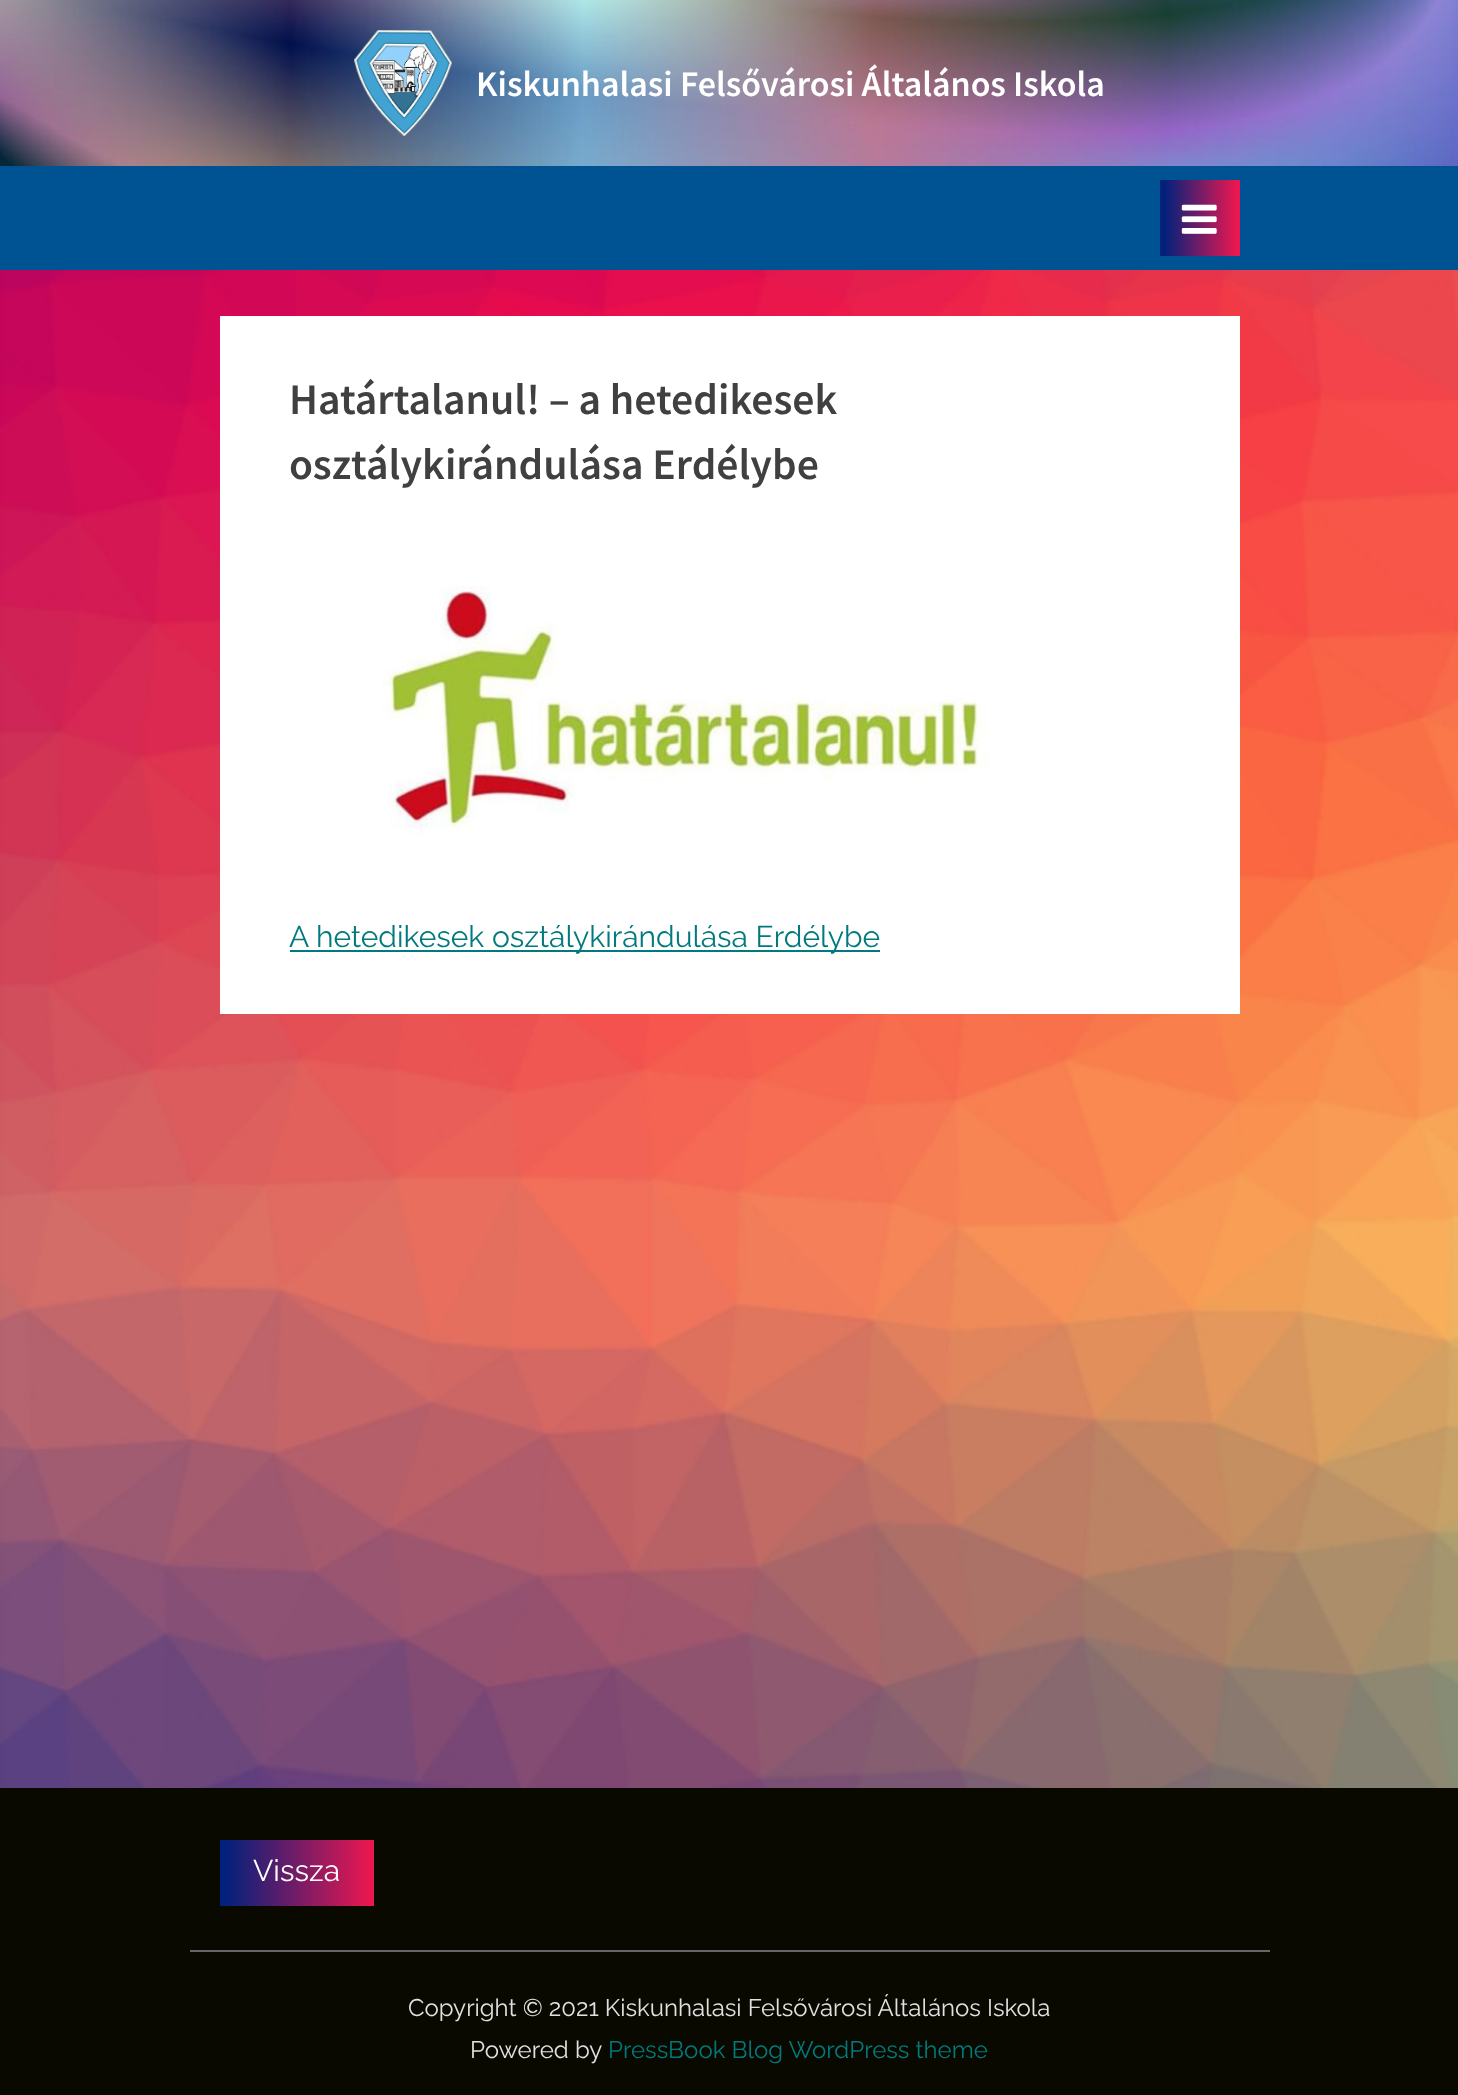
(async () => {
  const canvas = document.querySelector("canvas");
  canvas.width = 1458;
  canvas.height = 2095;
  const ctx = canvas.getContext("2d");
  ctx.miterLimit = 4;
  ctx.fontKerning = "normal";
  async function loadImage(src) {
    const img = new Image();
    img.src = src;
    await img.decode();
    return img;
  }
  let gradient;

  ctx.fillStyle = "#ffffff";
  ctx.fillRect(0, 0, 1458, 2095);
  ctx.drawImage(await loadImage("img/1.png"), 0, 270, 1458, 1518);
  ctx.drawImage(await loadImage("img/2.png"), 0, 0, 1458, 166);
  ctx.drawImage(await loadImage("img/3.png"), 354, 30, 98, 106);
  ctx.fillStyle = "#005393";
  ctx.fillRect(0, 166, 1458, 104);
  gradient = ctx.createLinearGradient(1020, 218, 1164, 218);
  gradient.addColorStop(0, "#00217c");
  gradient.addColorStop(0.51, "#ed1750");
  gradient.addColorStop(1, "#00217c");
  ctx.fillStyle = gradient;
  ctx.fillRect(1160, 180, 4, 76);
  gradient = ctx.createLinearGradient(1164, 218, 1308, 218);
  gradient.addColorStop(0, "#00217c");
  gradient.addColorStop(0.51, "#ed1750");
  gradient.addColorStop(1, "#00217c");
  ctx.fillStyle = gradient;
  ctx.fillRect(1164, 180, 76, 76);
  ctx.drawImage(await loadImage("img/4.png"), 1181, 204, 36, 30);
  ctx.fillStyle = "#ffffff";
  ctx.fillRect(220, 316, 1020, 698);
  ctx.drawImage(await loadImage("img/5.png"), 383, 586, 607, 249);
  for (const [x, y, w, h, color] of [
    [290, 950, 590, 2, "#007a7c"],
    [0, 1788, 1458, 307, "#0a0900"],
    [190, 1950, 1080, 2, "#666666"],
  ]) {
    ctx.fillStyle = color;
    ctx.fillRect(x, y, w, h);
  }
  gradient = ctx.createLinearGradient(-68, 1873, 224, 1873);
  gradient.addColorStop(0, "#00217c");
  gradient.addColorStop(0.51, "#ed1750");
  gradient.addColorStop(1, "#00217c");
  ctx.fillStyle = gradient;
  ctx.fillRect(220, 1840, 4, 66);
  gradient = ctx.createLinearGradient(224, 1873, 516, 1873);
  gradient.addColorStop(0, "#00217c");
  gradient.addColorStop(0.51, "#ed1750");
  gradient.addColorStop(1, "#00217c");
  ctx.fillStyle = gradient;
  ctx.fillRect(224, 1840, 150, 66);
  ctx.font = "600 36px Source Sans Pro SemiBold";
  ctx.fillStyle = "#ffffff";
  ctx.fillText("Kiskunhalasi Felsővárosi Általános Iskola", 476, 96);
  ctx.font = "600 43.75px Source Sans Pro SemiBold";
  ctx.fillStyle = "#404040";
  ctx.fillText("Határtalanul! – a hetedikesek", 289, 414);
  ctx.fillText("osztálykirándulása Erdélybe", 289, 479);
  ctx.font = "30px Raleway";
  ctx.fillStyle = "#007a7c";
  ctx.fillText("A hetedikesek osztálykirándulása Erdélybe", 289, 947);
  ctx.fillStyle = "#ffffff";
  ctx.fillText("Vissza", 253, 1881);
  ctx.font = "24px Raleway";
  ctx.fillStyle = "#e1e1e1";
  ctx.fillText("Copyright © 2021 Kiskunhalasi Felsővárosi Általános Iskola", 408, 2016);
  ctx.fillText("Powered by", 470, 2058);
  ctx.fillStyle = "#007a7c";
  ctx.fillText("PressBook Blog WordPress theme", 608, 2058);
})();
